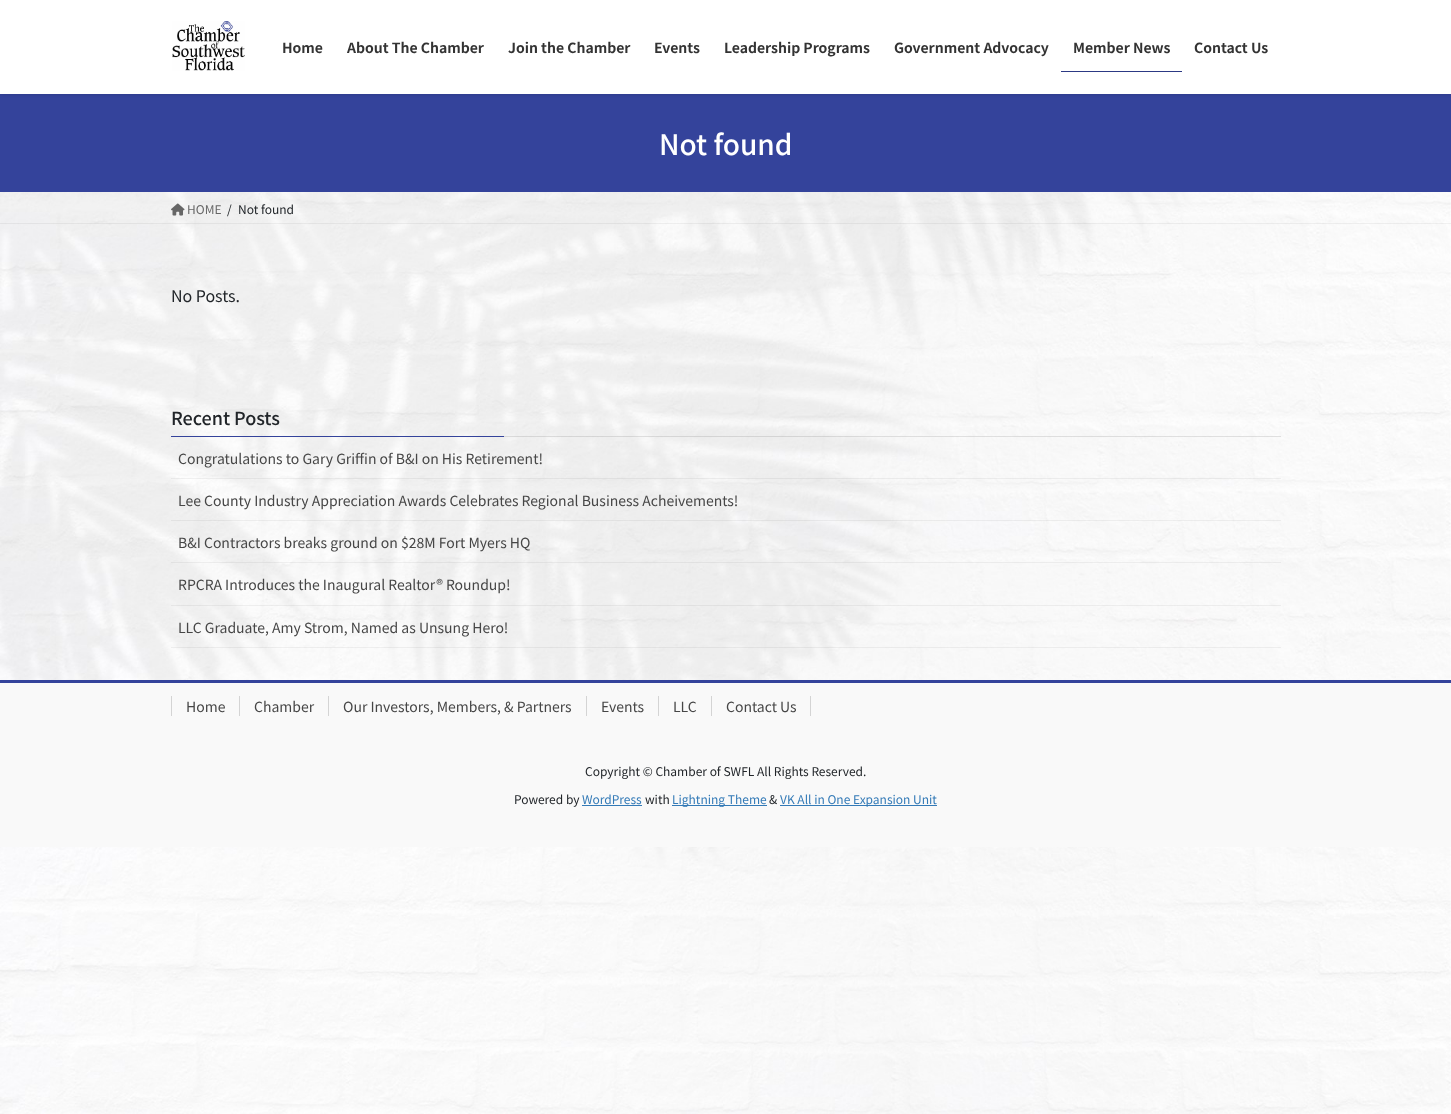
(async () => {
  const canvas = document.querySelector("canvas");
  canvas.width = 1451;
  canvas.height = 1114;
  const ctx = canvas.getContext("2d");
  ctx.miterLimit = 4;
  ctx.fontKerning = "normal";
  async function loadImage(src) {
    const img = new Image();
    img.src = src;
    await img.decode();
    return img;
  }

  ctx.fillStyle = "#ffffff";
  ctx.fillRect(0, 0, 1451, 1114);
  ctx.drawImage(await loadImage("img/1.png"), 0, 192, 1451, 922);
  ctx.fillStyle = "#34439b";
  ctx.fillRect(0, 94, 1451, 98);
  ctx.fillStyle = "rgba(0, 0, 0, 0.1)";
  ctx.filter = "blur(1.5px)";
  ctx.beginPath();
  ctx.rect(0, 1, 1451, 94);
  ctx.fill();
  ctx.filter = "none";
  ctx.fillStyle = "#ffffff";
  ctx.fillRect(0, 0, 1451, 94);
  ctx.drawImage(await loadImage("img/2.png"), 172, 21, 73, 50);
  ctx.fillStyle = "#2c3984";
  ctx.fillRect(1061, 71, 121, 1);
  ctx.fillStyle = "rgba(0, 0, 0, 0.05)";
  ctx.fillRect(0, 223, 1451, 1);
  ctx.drawImage(await loadImage("img/3.png"), 171, 203, 14, 13);
  for (const [x, y, w, h, color] of [
    [504, 436, 777, 1, "rgba(0, 0, 0, 0.1)"],
    [171, 436, 333, 1, "#34439b"],
    [171, 478, 1110, 1, "rgba(0, 0, 0, 0.05)"],
    [171, 520, 1110, 1, "rgba(0, 0, 0, 0.05)"],
    [171, 562, 1110, 1, "rgba(0, 0, 0, 0.05)"],
    [171, 605, 1110, 1, "rgba(0, 0, 0, 0.05)"],
    [171, 647, 1110, 1, "rgba(0, 0, 0, 0.05)"],
    [0, 683, 1451, 164, "#f9f9f9"],
    [0, 680, 1451, 3, "#34439b"],
    [171, 696, 1, 20, "#d4d4d4"],
    [239, 696, 1, 20, "#d4d4d4"],
    [328, 696, 1, 20, "#d4d4d4"],
    [586, 696, 1, 20, "#d4d4d4"],
    [658, 696, 1, 20, "#d4d4d4"],
    [810, 696, 1, 20, "#d4d4d4"],
    [711, 696, 1, 20, "#d4d4d4"],
    [582, 805, 60, 1, "#337ab7"],
    [672, 805, 95, 1, "#337ab7"],
    [780, 805, 157, 1, "#337ab7"],
  ]) {
    ctx.fillStyle = color;
    ctx.fillRect(x, y, w, h);
  }
  ctx.font = "bold 14px Noto Sans JP";
  ctx.fillStyle = "#333333";
  for (const [text, x, y] of [
    ["Home", 282, 53],
    ["About The Chamber", 347, 53],
    ["Join the Chamber", 508, 53],
    ["Events", 654, 53],
    ["Leadership Programs", 724, 53],
    ["Government Advocacy", 894, 53],
    ["Member News", 1073, 53],
    ["Contact Us", 1194, 53],
  ]) {
    ctx.fillText(text, x, y);
  }
  ctx.font = "500 28px Noto Sans JP";
  ctx.fillStyle = "#ffffff";
  ctx.fillText("Not found", 659, 155);
  ctx.font = "12px Noto Sans JP";
  ctx.fillStyle = "#666666";
  ctx.fillText("HOME", 187, 214);
  ctx.fillStyle = "#212529";
  ctx.fillText("/", 227, 214);
  ctx.fillText("Not found", 238, 214);
  ctx.font = "16px Noto Sans JP";
  ctx.fillText("No Posts.", 171, 302);
  ctx.font = "500 18px Noto Sans JP";
  ctx.fillText("Recent Posts", 171, 425);
  ctx.font = "14px Noto Sans JP";
  ctx.fillStyle = "#464646";
  for (const [text, x, y] of [
    ["Congratulations to Gary Griffin of B&I on His Retirement!", 178, 464],
    ["Lee County Industry Appreciation Awards Celebrates Regional Business Acheivements!", 178, 506],
    ["B&I Contractors breaks ground on $28M Fort Myers HQ", 178, 548],
    ["RPCRA Introduces the Inaugural Realtor® Roundup!", 178, 590],
    ["LLC Graduate, Amy Strom, Named as Unsung Hero!", 178, 633],
    ["Home", 186, 712],
    ["Chamber", 254, 712],
    ["Our Investors, Members, & Partners", 343, 712],
    ["Events", 601, 712],
    ["LLC", 673, 712],
    ["Contact Us", 726, 712],
  ]) {
    ctx.fillText(text, x, y);
  }
  ctx.font = "12px Noto Sans JP";
  ctx.fillStyle = "#212529";
  ctx.fillText("Copyright © Chamber of SWFL All Rights Reserved.", 585, 776);
  ctx.fillText("Powered by", 514, 804);
  ctx.fillStyle = "#337ab7";
  ctx.fillText("WordPress", 582, 804);
  ctx.fillStyle = "#212529";
  ctx.fillText("with", 645, 804);
  ctx.fillStyle = "#337ab7";
  ctx.fillText("Lightning Theme", 672, 804);
  ctx.fillStyle = "#212529";
  ctx.fillText("&", 769, 804);
  ctx.fillStyle = "#337ab7";
  ctx.fillText("VK All in One Expansion Unit", 780, 804);
})();
